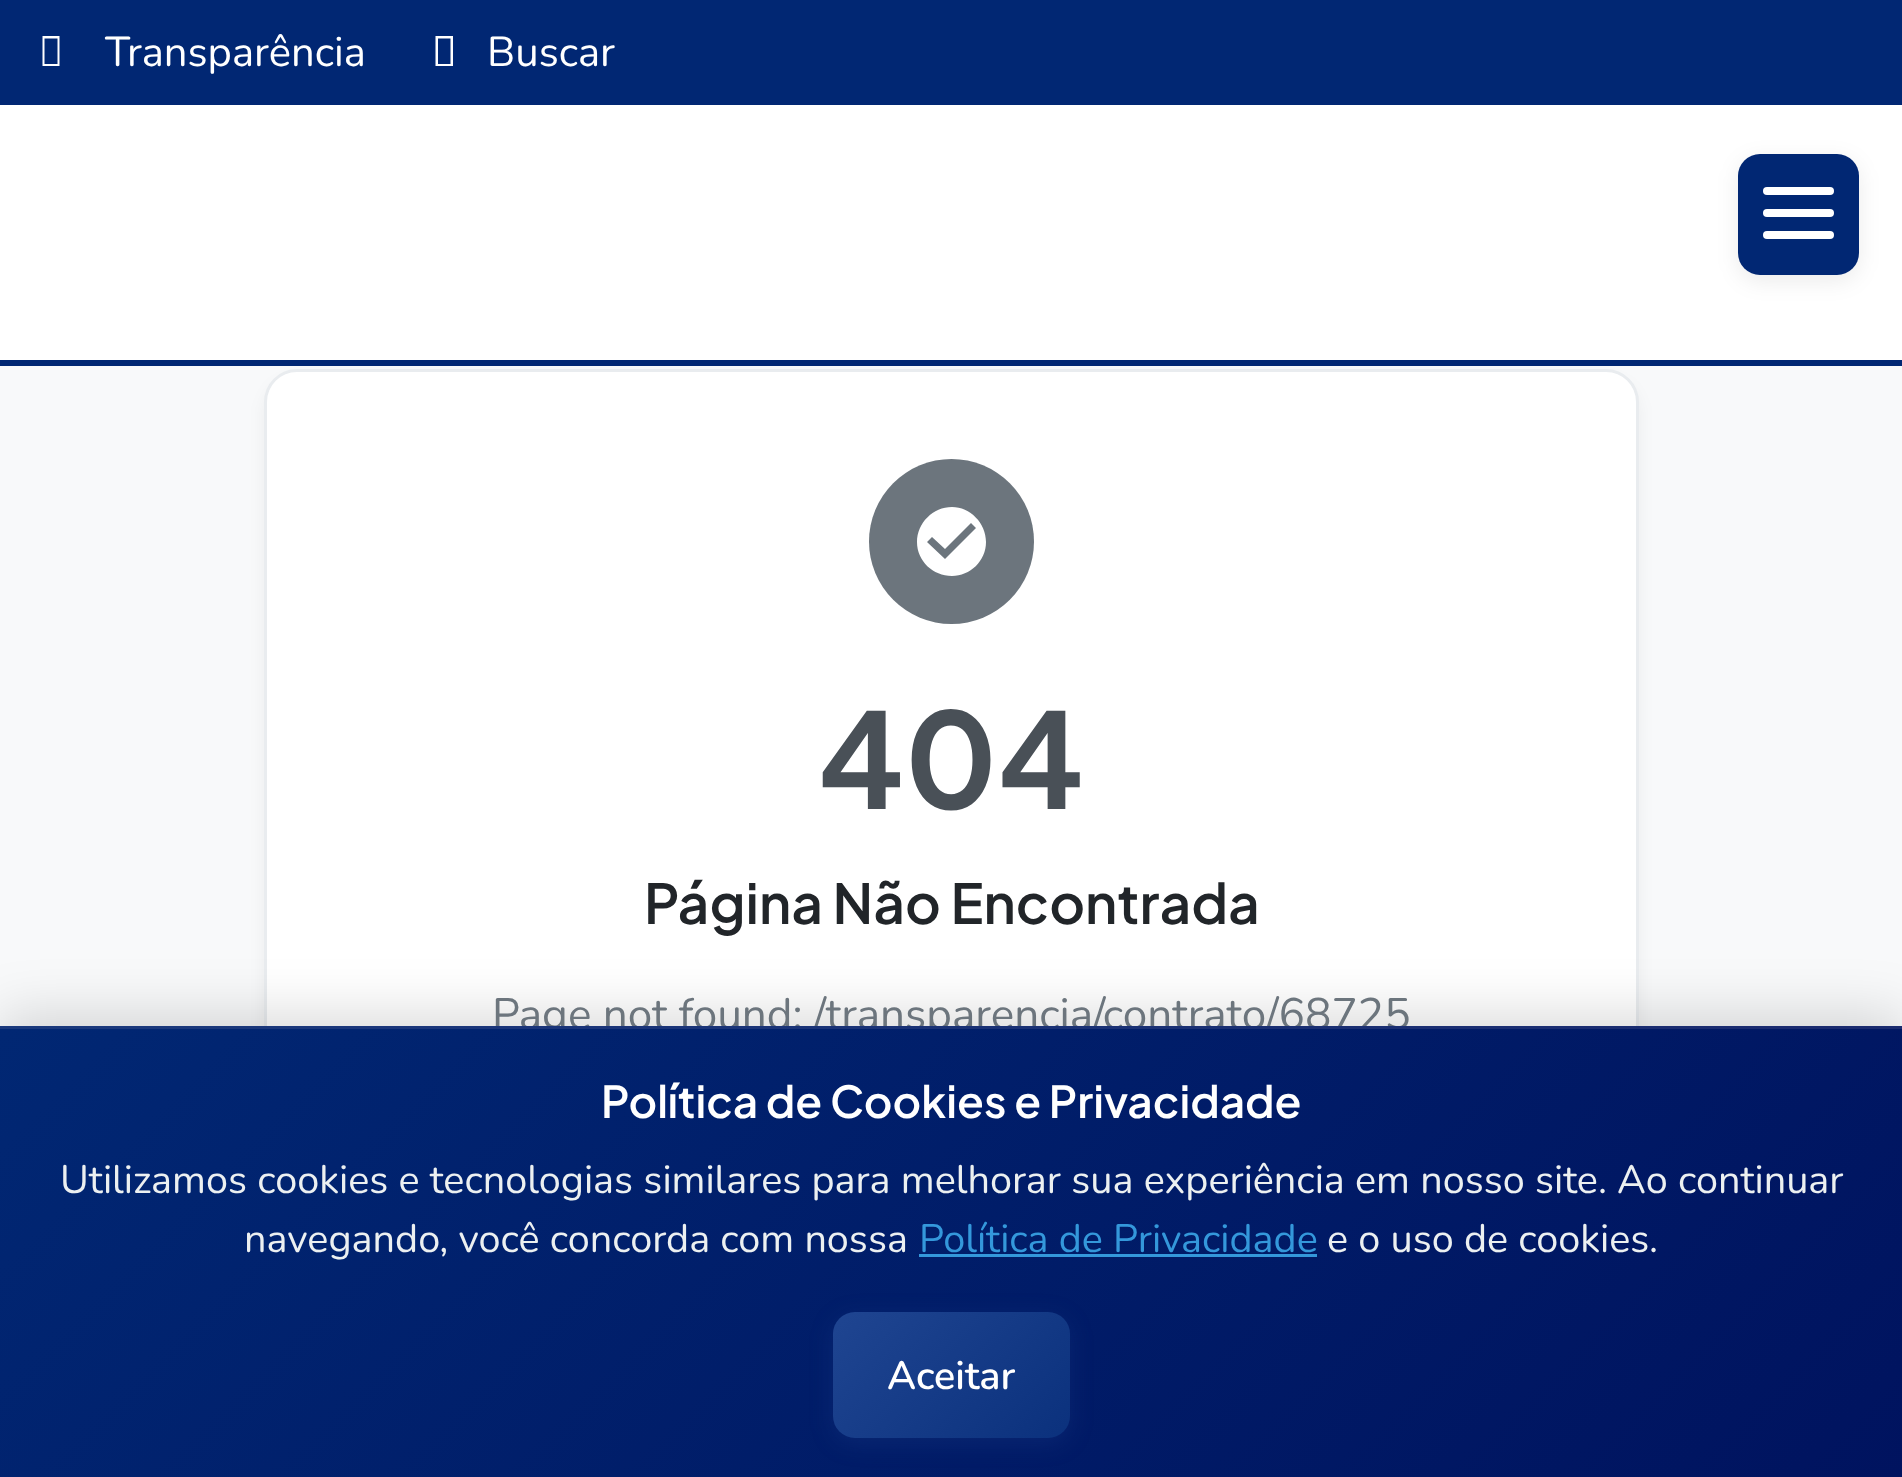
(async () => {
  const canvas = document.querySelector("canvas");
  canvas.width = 1902;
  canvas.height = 1477;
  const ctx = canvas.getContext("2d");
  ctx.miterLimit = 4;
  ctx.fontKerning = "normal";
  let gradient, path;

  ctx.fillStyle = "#f8f9fa";
  ctx.fillRect(0, 0, 1902, 1477);
  ctx.fillStyle = "#012773";
  ctx.fillRect(0, 0, 1902, 105);
  ctx.fillStyle = "#ffffff";
  path = new Path2D("M42.5 66V36H59.5V66ZM44.5 64H57.5V38.5H44.5Z");
  ctx.fill(path);
  path = new Path2D("M435.5 66V36H453V66ZM438 64H450.5V38.5H438Z");
  ctx.fill(path);
  ctx.fillStyle = "rgba(0, 0, 0, 0.05)";
  ctx.filter = "blur(8px)";
  ctx.beginPath();
  ctx.roundRect(264, 380, 1375, 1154, 33);
  ctx.fill();
  ctx.filter = "none";
  ctx.fillStyle = "#ffffff";
  ctx.fillRect(0, 105, 1902, 255);
  ctx.fillStyle = "#012773";
  ctx.fillRect(0, 360, 1902, 6);
  ctx.fillStyle = "rgba(0, 0, 0, 0.08)";
  ctx.filter = "blur(11px)";
  ctx.beginPath();
  ctx.roundRect(1738, 160, 121, 121, 22);
  ctx.fill();
  ctx.filter = "none";
  ctx.fillStyle = "#012773";
  ctx.beginPath();
  ctx.roundRect(1738, 154, 121, 121, 22);
  ctx.fill();
  ctx.fillStyle = "#ffffff";
  ctx.beginPath();
  ctx.roundRect(1763, 187, 71, 8, 4);
  ctx.fill();
  ctx.beginPath();
  ctx.roundRect(1763, 209, 71, 8, 4);
  ctx.fill();
  ctx.beginPath();
  ctx.roundRect(1763, 231, 71, 8, 4);
  ctx.fill();
  ctx.beginPath();
  ctx.roundRect(265.5, 370.5, 1372, 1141, 31.5);
  ctx.fill();
  ctx.strokeStyle = "#e9ecef";
  ctx.lineWidth = 3;
  ctx.stroke();
  ctx.fillStyle = "#6c757d";
  ctx.beginPath();
  ctx.arc(951.5, 541.5, 82.5, 0, Math.PI * 2);
  ctx.fill();
  ctx.fillStyle = "#ffffff";
  path = new Path2D("M952 507C933 507 917 523 917 542C917 561 933 576 952 576C970 576 986 561 986 542C986 523 970 507 952 507ZM945 559L927 542L932 537L945 549L971 523L976 528Z");
  ctx.fill(path);
  ctx.fillStyle = "rgba(0, 0, 0, 0.15)";
  ctx.filter = "blur(27.5px)";
  ctx.beginPath();
  ctx.rect(0, 1015, 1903, 454);
  ctx.fill();
  ctx.filter = "none";
  ctx.font = "41.75px Nunito";
  ctx.fillStyle = "#ffffff";
  ctx.fillText("Transparência", 105, 66);
  ctx.fillText("Buscar", 487, 66);
  ctx.font = "bold 132px Plus Jakarta Sans";
  ctx.fillStyle = "#495057";
  ctx.fillText("404", 818, 809);
  ctx.font = "600 55px Plus Jakarta Sans";
  ctx.fillStyle = "#212529";
  ctx.fillText("Página Não Encontrada", 644, 924);
  ctx.font = "44px Nunito";
  ctx.fillStyle = "#6c757d";
  ctx.fillText("Page not found: /transparencia/contrato/68725", 492, 1029);
  gradient = ctx.createLinearGradient(363, 215, 1540, 1392);
  gradient.addColorStop(0, "#012773");
  gradient.addColorStop(1, "#00135f");
  ctx.fillStyle = gradient;
  ctx.fillRect(0, 1026, 1902, 3);
  gradient = ctx.createLinearGradient(363, 666, 1540, 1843);
  gradient.addColorStop(0, "#012773");
  gradient.addColorStop(1, "#00135f");
  ctx.fillStyle = gradient;
  ctx.fillRect(0, 1029, 1902, 448);
  ctx.fillStyle = "rgba(255, 255, 255, 0.1)";
  ctx.fillRect(0, 1026, 1902, 3);
  ctx.font = "600 44px Plus Jakarta Sans";
  ctx.fillStyle = "#ffffff";
  ctx.fillText("Política de Cookies e Privacidade", 601, 1118);
  ctx.font = "39.6px Nunito";
  ctx.fillStyle = "#ecf0f1";
  ctx.fillText("Utilizamos cookies e tecnologias similares para melhorar sua experiência em nosso site. Ao continuar", 60, 1193);
  ctx.fillText("navegando, você concorda com nossa", 244, 1252);
  ctx.fillStyle = "#3498db";
  ctx.fillText("Política de Privacidade", 919, 1252);
  ctx.fillRect(919, 1254, 398, 3);
  ctx.fillStyle = "#ecf0f1";
  ctx.fillText("e o uso de cookies.", 1327, 1252);
  ctx.fillStyle = "rgba(31, 69, 145, 0.25)";
  ctx.filter = "blur(11px)";
  ctx.beginPath();
  ctx.roundRect(833, 1317, 237, 127, 22);
  ctx.fill();
  ctx.filter = "none";
  gradient = ctx.createLinearGradient(861, 1284, 1042, 1466);
  gradient.addColorStop(0, "#1f4591");
  gradient.addColorStop(1, "#0b317d");
  ctx.fillStyle = gradient;
  ctx.beginPath();
  ctx.roundRect(833, 1312, 237, 126, 22);
  ctx.fill();
  ctx.font = "600 39.6px Nunito";
  ctx.fillStyle = "#ffffff";
  ctx.fillText("Aceitar", 887, 1389);
})();
